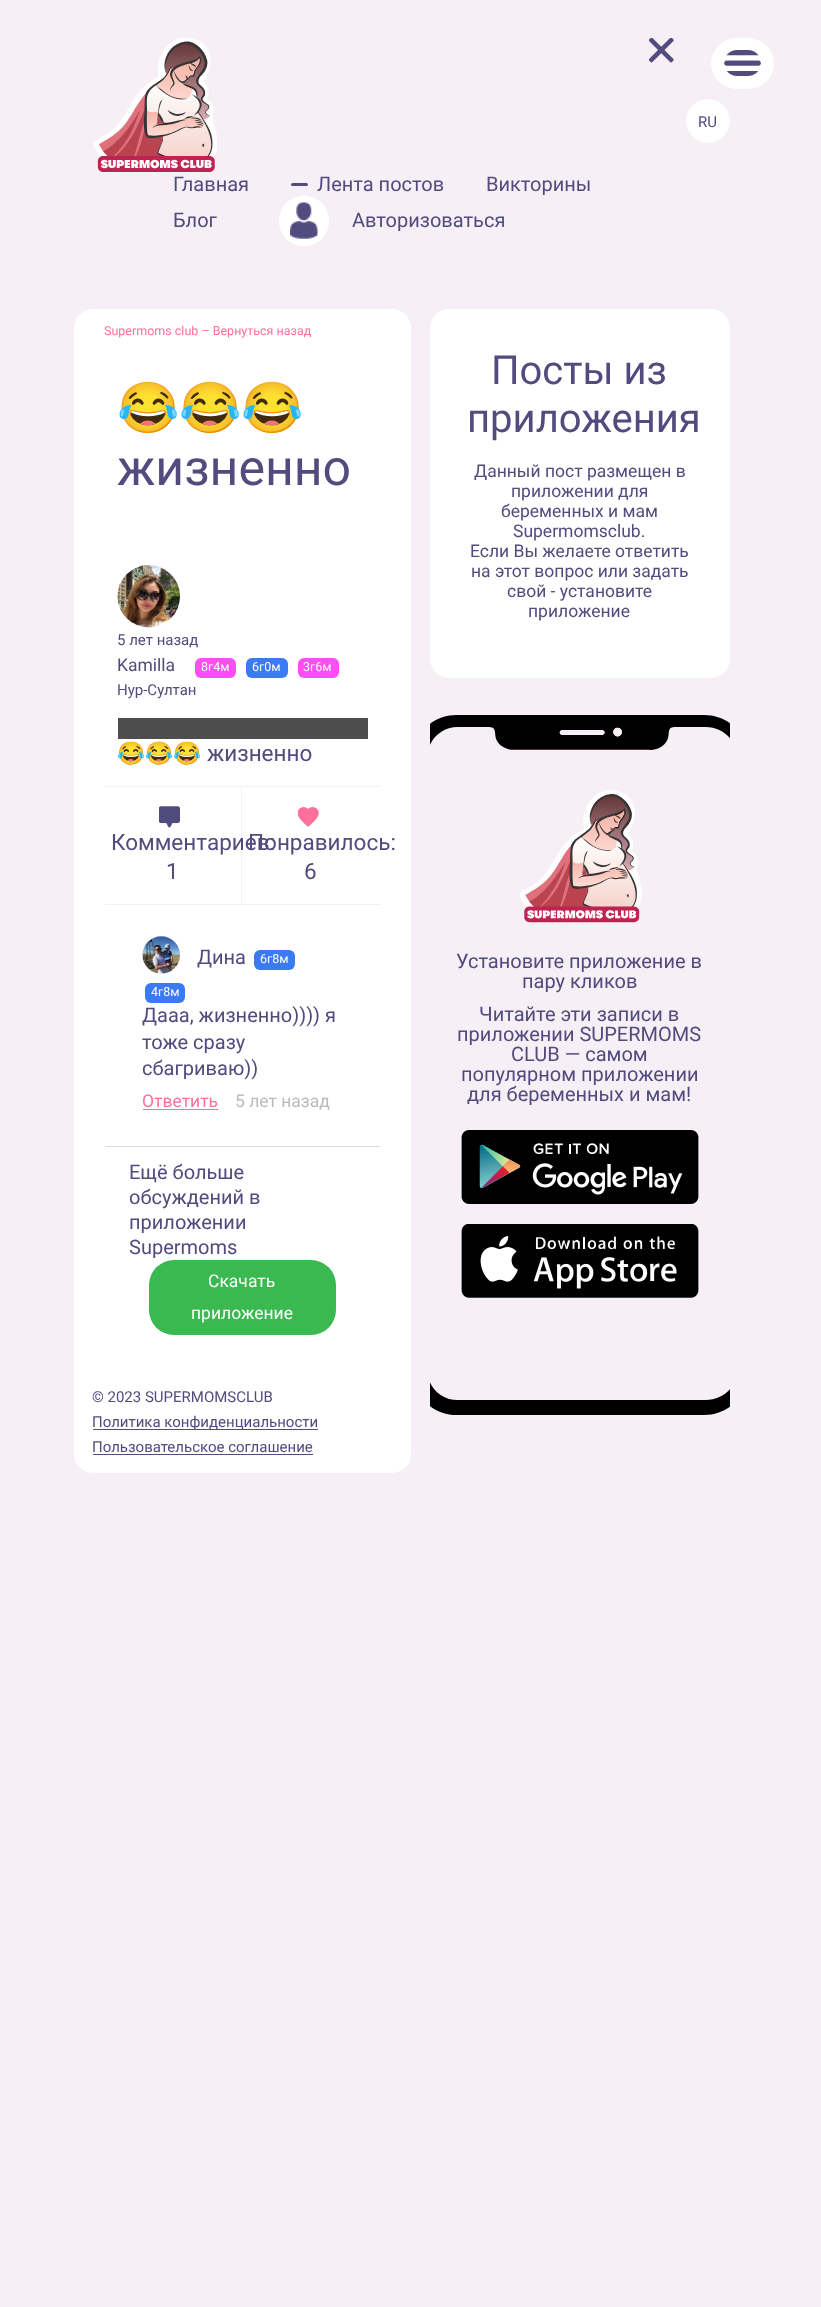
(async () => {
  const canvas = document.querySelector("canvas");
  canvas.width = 821;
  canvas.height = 2307;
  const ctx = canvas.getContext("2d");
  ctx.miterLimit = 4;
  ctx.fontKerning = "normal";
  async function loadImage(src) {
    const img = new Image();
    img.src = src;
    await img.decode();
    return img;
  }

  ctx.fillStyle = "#f6eff6";
  ctx.fillRect(0, 0, 821, 2307);
  ctx.fillStyle = "#ffffff";
  ctx.beginPath();
  ctx.roundRect(711, 38, 63, 51, 25.5);
  ctx.fill();
  ctx.drawImage(await loadImage("img/1.png"), 724, 50, 37, 26);
  ctx.beginPath();
  ctx.arc(708, 121, 22, 0, Math.PI * 2);
  ctx.fill();
  ctx.drawImage(await loadImage("img/2.png"), 93, 38, 124, 134);
  ctx.drawImage(await loadImage("img/3.png"), 649, 38, 25, 25);
  ctx.fillStyle = "#514b7e";
  ctx.beginPath();
  ctx.roundRect(291, 183, 17, 3, 1.5);
  ctx.fill();
  ctx.fillStyle = "#ffffff";
  ctx.beginPath();
  ctx.arc(304, 221, 25, 0, Math.PI * 2);
  ctx.fill();
  ctx.drawImage(await loadImage("img/4.png"), 290, 202, 28, 37);
  ctx.beginPath();
  ctx.arc(304, 221, 23.5, 0, Math.PI * 2);
  ctx.strokeStyle = "#ffffff";
  ctx.lineWidth = 3;
  ctx.stroke();
  ctx.beginPath();
  ctx.roundRect(74, 309, 337, 1164, 19);
  ctx.fill();
  ctx.drawImage(await loadImage("img/5.png"), 117, 565, 64, 63);
  ctx.fillStyle = "#fd4df6";
  ctx.beginPath();
  ctx.roundRect(195, 658, 41, 20, 6);
  ctx.fill();
  ctx.fillStyle = "#3a7af5";
  ctx.beginPath();
  ctx.roundRect(246, 658, 42, 20, 6);
  ctx.fill();
  ctx.fillStyle = "#fd4df6";
  ctx.beginPath();
  ctx.roundRect(298, 658, 41, 20, 6);
  ctx.fill();
  for (const [x, y, w, h, color] of [
    [118, 718, 250, 21, "#4d4d4d"],
    [105, 786, 275, 1, "#f6eff6"],
    [241, 786, 1, 119, "#f6eff6"],
    [105, 904, 275, 1, "#f6eff6"],
  ]) {
    ctx.fillStyle = color;
    ctx.fillRect(x, y, w, h);
  }
  ctx.drawImage(await loadImage("img/6.png"), 159, 806, 21, 22);
  ctx.drawImage(await loadImage("img/7.png"), 298, 807, 21, 20);
  ctx.drawImage(await loadImage("img/8.png"), 142, 936, 38, 38);
  ctx.fillStyle = "#3a7af5";
  ctx.beginPath();
  ctx.roundRect(254, 950, 41, 20, 6);
  ctx.fill();
  ctx.beginPath();
  ctx.roundRect(145, 983, 40, 20, 6);
  ctx.fill();
  ctx.fillStyle = "#ff709b";
  ctx.fillRect(143, 1109, 75, 1);
  ctx.fillStyle = "#dadada";
  ctx.fillRect(105, 1146, 275, 1);
  ctx.fillStyle = "#3ab951";
  ctx.beginPath();
  ctx.roundRect(149, 1260, 187, 75, 25);
  ctx.fill();
  ctx.fillStyle = "#514b7e";
  ctx.fillRect(93, 1429, 225, 1);
  ctx.fillRect(93, 1454, 220, 1);
  ctx.fillStyle = "#ffffff";
  ctx.beginPath();
  ctx.roundRect(430, 309, 300, 369, 19);
  ctx.fill();
  ctx.drawImage(await loadImage("img/9.png"), 430, 715, 300, 700);
  ctx.drawImage(await loadImage("img/10.png"), 461, 1130, 238, 74);
  ctx.drawImage(await loadImage("img/11.png"), 461, 1224, 238, 74);
  ctx.font = "15px Roboto";
  ctx.fillStyle = "#514b7e";
  ctx.fillText("RU", 698, 127);
  ctx.font = "20px Roboto";
  for (const [text, x, y] of [
    ["Главная", 173, 191],
    ["Лента постов", 317, 191],
    ["Викторины", 486, 191],
    ["Блог", 173, 227],
    ["Авторизоваться", 352, 227],
  ]) {
    ctx.fillText(text, x, y);
  }
  ctx.font = "12.5px Roboto";
  ctx.fillStyle = "#ff709b";
  ctx.fillText("Supermoms club – Вернуться назад", 104, 335);
  ctx.font = "50px Noto Color Emoji";
  ctx.fillStyle = "#514b7e";
  ctx.fillText("😂😂😂", 117, 425);
  ctx.font = "50px Roboto";
  ctx.fillText("жизненно", 117, 485);
  ctx.font = "15px Roboto";
  ctx.fillText("5 лет назад", 117, 645);
  ctx.font = "17.5px Roboto";
  ctx.fillText("Kamilla", 117, 671);
  ctx.font = "12.5px Roboto";
  ctx.fillStyle = "#ffffff";
  for (const [text, x, y] of [
    ["8г4м", 201, 671],
    ["6г0м", 252, 671],
    ["3г6м", 303, 671],
  ]) {
    ctx.fillText(text, x, y);
  }
  ctx.font = "15px Roboto";
  ctx.fillStyle = "#514b7e";
  ctx.fillText("Нур-Султан", 117, 695);
  ctx.font = "22.5px Noto Color Emoji";
  ctx.fillText("😂😂😂", 117, 761);
  ctx.font = "22.5px Roboto";
  for (const [text, x, y] of [
    ["жизненно", 207, 761],
    ["Комментариев:", 111, 850],
    ["1", 166, 879],
    ["Понравилось:", 248, 850],
    ["6", 304, 879],
  ]) {
    ctx.fillText(text, x, y);
  }
  ctx.font = "20px Roboto";
  ctx.fillText("Дина", 197, 964);
  ctx.font = "12.5px Roboto";
  ctx.fillStyle = "#ffffff";
  ctx.fillText("6г8м", 260, 963);
  ctx.fillText("4г8м", 151, 996);
  ctx.font = "20px Roboto";
  ctx.fillStyle = "#514b7e";
  for (const [text, x, y] of [
    ["Дааа, жизненно)))) я", 142, 1022],
    ["тоже сразу", 142, 1049],
    ["сбагриваю))", 142, 1075],
  ]) {
    ctx.fillText(text, x, y);
  }
  ctx.font = "17.5px Roboto";
  ctx.fillStyle = "#ff709b";
  ctx.fillText("Ответить", 142, 1107);
  ctx.fillStyle = "#bababa";
  ctx.fillText("5 лет назад", 235, 1107);
  ctx.font = "20px Roboto";
  ctx.fillStyle = "#514b7e";
  for (const [text, x, y] of [
    ["Ещё больше", 129, 1179],
    ["обсуждений в", 129, 1204],
    ["приложении", 129, 1229],
    ["Supermoms", 129, 1254],
  ]) {
    ctx.fillText(text, x, y);
  }
  ctx.font = "17.5px Roboto";
  ctx.fillStyle = "#ffffff";
  ctx.fillText("Скачать", 208, 1287);
  ctx.fillText("приложение", 191, 1319);
  ctx.font = "15px Roboto";
  ctx.fillStyle = "#514b7e";
  for (const [text, x, y] of [
    ["© 2023 SUPERMOMSCLUB", 92, 1402],
    ["Политика конфиденциальности", 92, 1427],
    ["Пользовательское соглашение", 92, 1452],
  ]) {
    ctx.fillText(text, x, y);
  }
  ctx.font = "40px Roboto";
  ctx.fillText("Посты из", 491, 384);
  ctx.fillText("приложения", 467, 432);
  ctx.font = "17.5px Roboto";
  for (const [text, x, y] of [
    ["Данный пост размещен в", 474, 477],
    ["приложении для", 511, 497],
    ["беременных и мам", 501, 517],
    ["Supermomsclub.", 513, 537],
    ["Если Вы желаете ответить", 470, 557],
    ["на этот вопрос или задать", 471, 577],
    ["свой - установите", 507, 597],
    ["приложение", 528, 617],
  ]) {
    ctx.fillText(text, x, y);
  }
  ctx.font = "20px Roboto";
  for (const [text, x, y] of [
    ["Установите приложение в", 456, 968],
    ["пару кликов", 522, 988],
    ["Читайте эти записи в", 479, 1021],
    ["приложении SUPERMOMS", 457, 1041],
    ["CLUB — самом", 511, 1061],
    ["популярном приложении", 461, 1081],
    ["для беременных и мам!", 467, 1101],
  ]) {
    ctx.fillText(text, x, y);
  }
})();
